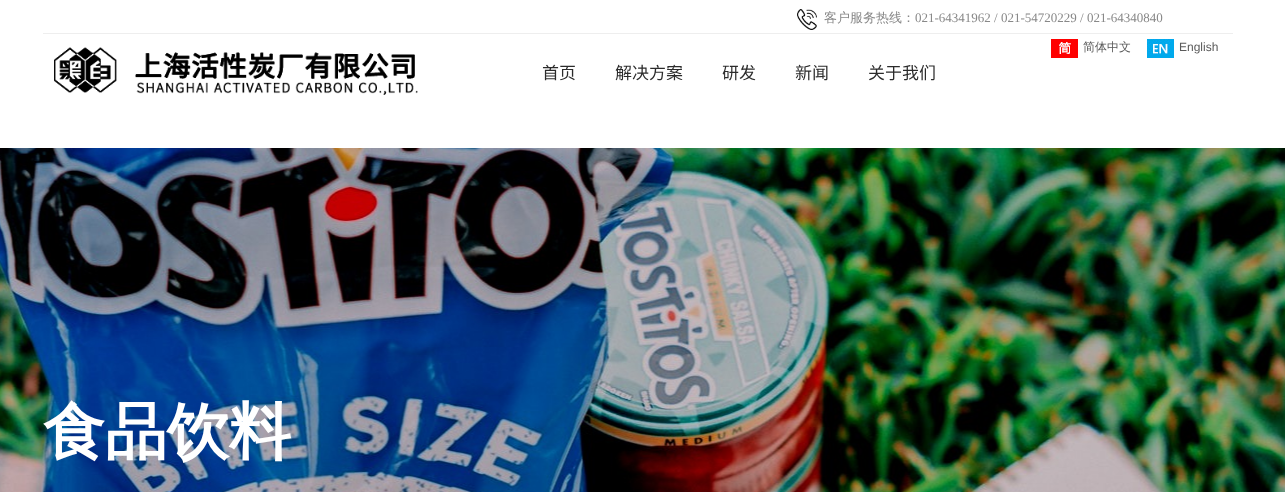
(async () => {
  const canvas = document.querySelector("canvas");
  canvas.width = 1285;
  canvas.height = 492;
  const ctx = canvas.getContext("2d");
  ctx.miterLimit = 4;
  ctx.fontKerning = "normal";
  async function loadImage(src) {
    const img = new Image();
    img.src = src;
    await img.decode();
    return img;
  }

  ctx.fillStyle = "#ffffff";
  ctx.fillRect(0, 0, 1285, 492);
  ctx.drawImage(await loadImage("img/1.png"), 797, 9, 20, 21);
  ctx.fillStyle = "#eeeeee";
  ctx.fillRect(43, 33, 1190, 1);
  ctx.drawImage(await loadImage("img/2.png"), 54, 47, 364, 48);
  ctx.drawImage(await loadImage("img/3.png"), 1051, 39, 27, 19);
  ctx.drawImage(await loadImage("img/4.png"), 1147, 39, 27, 19);
  ctx.drawImage(await loadImage("img/5.png"), 0, 148, 1285, 344);
  ctx.font = "500 13px WenQuanYi Zen Hei";
  ctx.fillStyle = "#888888";
  ctx.fillText("客户服务热线：", 824, 22);
  ctx.font = "13px Liberation Serif";
  ctx.fillText("021-64341962 / 021-54720229 / 021-64340840", 915, 22);
  ctx.font = "17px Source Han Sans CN";
  ctx.fillStyle = "#2b2b2b";
  for (const [text, x, y] of [
    ["首页", 542, 79],
    ["解决方案", 615, 79],
    ["研发", 722, 79],
    ["新闻", 795, 79],
    ["关于我们", 868, 79],
  ]) {
    ctx.fillText(text, x, y);
  }
  ctx.font = "500 12px WenQuanYi Zen Hei";
  ctx.fillStyle = "#5a5a5a";
  ctx.fillText("简体中文", 1083, 51);
  ctx.font = "12px Liberation Sans";
  ctx.fillText("English", 1179, 51);
  ctx.font = "bold 62px WenQuanYi Zen Hei";
  ctx.fillStyle = "#ffffff";
  ctx.fillText("食品饮料", 43, 453);
})();
